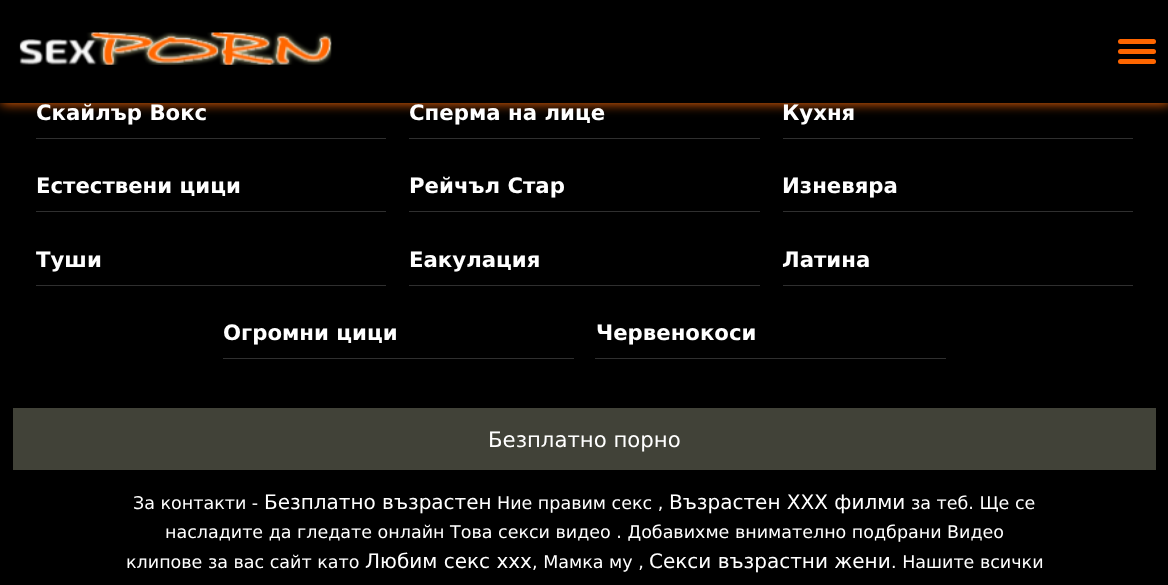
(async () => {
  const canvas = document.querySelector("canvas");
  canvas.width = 1168;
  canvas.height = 585;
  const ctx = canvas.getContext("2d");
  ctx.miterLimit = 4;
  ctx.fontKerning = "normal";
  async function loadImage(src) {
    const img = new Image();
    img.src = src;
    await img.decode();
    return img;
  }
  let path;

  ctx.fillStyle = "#000000";
  ctx.fillRect(0, 0, 1168, 585);
  ctx.save();
  path = new Path2D("M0 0H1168V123H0ZM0 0H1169V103H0Z");
  ctx.clip(path, "evenodd");
  ctx.fillStyle = "#e66108";
  ctx.filter = "blur(6px)";
  ctx.beginPath();
  ctx.rect(1, 1, 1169, 103);
  ctx.fill();
  ctx.filter = "none";
  ctx.restore();
  ctx.drawImage(await loadImage("img/1.png"), 19, 32, 313, 33);
  ctx.fillStyle = "#ff6600";
  ctx.beginPath();
  ctx.roundRect(1118, 39, 38, 5, 2.5);
  ctx.fill();
  ctx.beginPath();
  ctx.roundRect(1118, 49, 38, 5, 2.5);
  ctx.fill();
  ctx.beginPath();
  ctx.roundRect(1118, 59, 38, 5, 2.5);
  ctx.fill();
  for (const [x, y, w, h, color] of [
    [36, 138, 350, 1, "#2f2f2f"],
    [409, 138, 351, 1, "#2f2f2f"],
    [783, 138, 350, 1, "#2f2f2f"],
    [36, 211, 350, 1, "#2f2f2f"],
    [409, 211, 351, 1, "#2f2f2f"],
    [783, 211, 350, 1, "#2f2f2f"],
    [36, 285, 350, 1, "#2f2f2f"],
    [409, 285, 351, 1, "#2f2f2f"],
    [783, 285, 350, 1, "#2f2f2f"],
    [223, 358, 351, 1, "#2f2f2f"],
    [595, 358, 351, 1, "#2f2f2f"],
    [13, 408, 1143, 62, "#414238"],
  ]) {
    ctx.fillStyle = color;
    ctx.fillRect(x, y, w, h);
  }
  ctx.font = "bold 21.25px DejaVu Sans";
  ctx.fillStyle = "#ffffff";
  for (const [text, x, y] of [
    ["Скайлър Вокс", 36, 120],
    ["Сперма на лице", 409, 120],
    ["Кухня", 782, 120],
    ["Естествени цици", 36, 193],
    ["Рейчъл Стар", 409, 193],
    ["Изневяра", 782, 193],
    ["Туши", 36, 267],
    ["Еакулация", 409, 267],
    ["Латина", 782, 267],
    ["Огромни цици", 223, 340],
    ["Червенокоси", 596, 340],
  ]) {
    ctx.fillText(text, x, y);
  }
  ctx.font = "21.25px DejaVu Sans";
  ctx.fillText("Безплатно порно", 488, 447);
  ctx.font = "17.5px DejaVu Sans";
  ctx.fillText("За контакти -", 133, 509);
  ctx.font = "20px DejaVu Sans";
  ctx.fillText("Безплатно възрастен", 264, 509);
  ctx.font = "17.5px DejaVu Sans";
  ctx.fillText("Ние правим секс ,", 497, 509);
  ctx.font = "20px DejaVu Sans";
  ctx.fillText("Възрастен ХХХ филми", 669, 509);
  ctx.font = "17.5px DejaVu Sans";
  for (const [text, x, y] of [
    ["за теб. Ще се", 911, 509],
    ["насладите да гледате онлайн Това секси видео . Добавихме внимателно подбрани Видео", 165, 538],
    ["клипове за вас сайт като", 126, 568],
  ]) {
    ctx.fillText(text, x, y);
  }
  ctx.font = "20px DejaVu Sans";
  ctx.fillText("Любим секс ххх", 365, 568);
  ctx.font = "17.5px DejaVu Sans";
  ctx.fillText(", Мамка му ,", 532, 568);
  ctx.font = "20px DejaVu Sans";
  ctx.fillText("Секси възрастни жени", 649, 568);
  ctx.font = "17.5px DejaVu Sans";
  ctx.fillText(". Нашите всички", 891, 568);
})();
